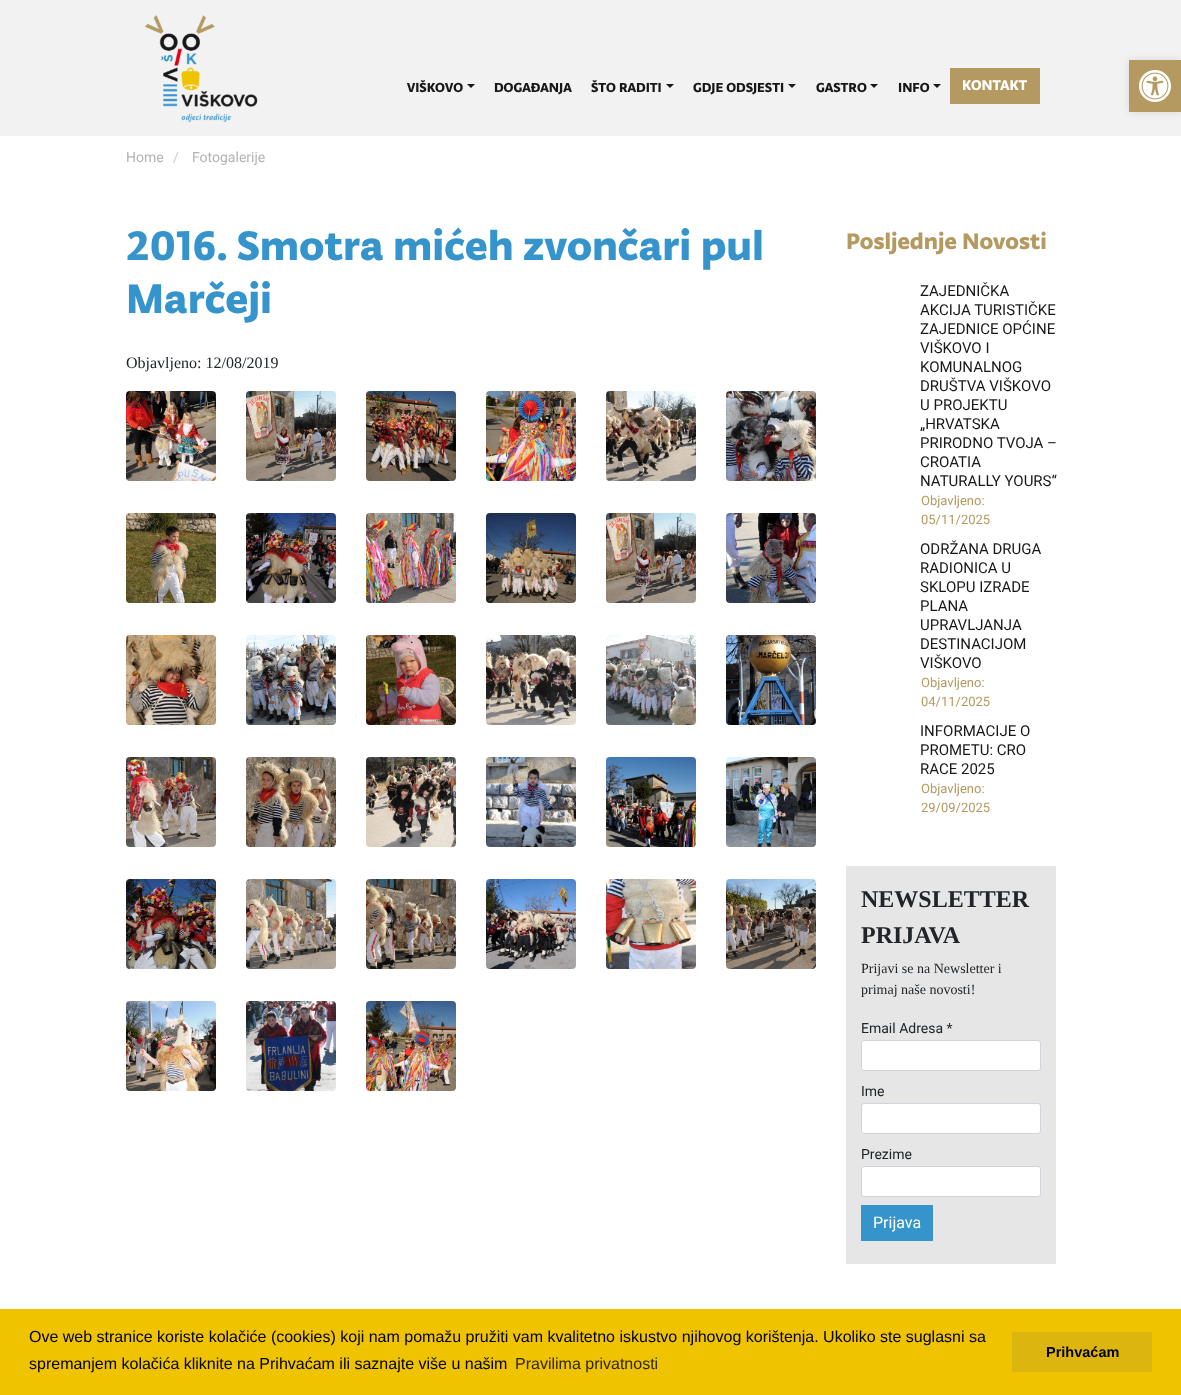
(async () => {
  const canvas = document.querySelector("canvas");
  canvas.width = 1181;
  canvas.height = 1395;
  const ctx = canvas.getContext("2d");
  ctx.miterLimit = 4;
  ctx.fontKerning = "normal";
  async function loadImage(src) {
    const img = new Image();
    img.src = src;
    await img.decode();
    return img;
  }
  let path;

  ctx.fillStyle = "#ffffff";
  ctx.fillRect(0, 0, 1181, 1395);
  ctx.fillStyle = "#f2f2f2";
  ctx.fillRect(0, 0, 1181, 136);
  ctx.drawImage(await loadImage("img/1.png"), 144, 15, 114, 107);
  ctx.fillStyle = "#1a171b";
  path = new Path2D("M467 84H475L471 88Z");
  ctx.fill(path);
  path = new Path2D("M666 84H674L670 88Z");
  ctx.fill(path);
  path = new Path2D("M788 84H796L792 88Z");
  ctx.fill(path);
  path = new Path2D("M870 84H878L874 88Z");
  ctx.fill(path);
  path = new Path2D("M933 84H941L937 88Z");
  ctx.fill(path);
  ctx.fillStyle = "#b49a61";
  ctx.fillRect(950, 68, 90, 36);
  ctx.fillStyle = "rgba(0, 0, 0, 0.1)";
  ctx.filter = "blur(5px)";
  ctx.beginPath();
  ctx.rect(1129, 60, 52, 52);
  ctx.fill();
  ctx.filter = "none";
  ctx.fillStyle = "#b49a61";
  ctx.fillRect(1129, 60, 52, 52);
  ctx.drawImage(await loadImage("img/2.png"), 1139, 70, 32, 32);
  ctx.drawImage(await loadImage("img/3.png"), 126, 391, 90, 90);
  ctx.drawImage(await loadImage("img/4.png"), 246, 391, 90, 90);
  ctx.drawImage(await loadImage("img/5.png"), 366, 391, 90, 90);
  ctx.drawImage(await loadImage("img/6.png"), 486, 391, 90, 90);
  ctx.drawImage(await loadImage("img/7.png"), 606, 391, 90, 90);
  ctx.drawImage(await loadImage("img/8.png"), 726, 391, 90, 90);
  ctx.drawImage(await loadImage("img/9.png"), 126, 513, 90, 90);
  ctx.drawImage(await loadImage("img/10.png"), 246, 513, 90, 90);
  ctx.drawImage(await loadImage("img/11.png"), 366, 513, 90, 90);
  ctx.drawImage(await loadImage("img/12.png"), 486, 513, 90, 90);
  ctx.drawImage(await loadImage("img/13.png"), 606, 513, 90, 90);
  ctx.drawImage(await loadImage("img/14.png"), 726, 513, 90, 90);
  ctx.drawImage(await loadImage("img/15.png"), 126, 635, 90, 90);
  ctx.drawImage(await loadImage("img/16.png"), 246, 635, 90, 90);
  ctx.drawImage(await loadImage("img/17.png"), 366, 635, 90, 90);
  ctx.drawImage(await loadImage("img/18.png"), 486, 635, 90, 90);
  ctx.drawImage(await loadImage("img/19.png"), 606, 635, 90, 90);
  ctx.drawImage(await loadImage("img/20.png"), 726, 635, 90, 90);
  ctx.drawImage(await loadImage("img/21.png"), 126, 757, 90, 90);
  ctx.drawImage(await loadImage("img/22.png"), 246, 757, 90, 90);
  ctx.drawImage(await loadImage("img/23.png"), 366, 757, 90, 90);
  ctx.drawImage(await loadImage("img/24.png"), 486, 757, 90, 90);
  ctx.drawImage(await loadImage("img/25.png"), 606, 757, 90, 90);
  ctx.drawImage(await loadImage("img/26.png"), 726, 757, 90, 90);
  ctx.drawImage(await loadImage("img/27.png"), 126, 879, 90, 90);
  ctx.drawImage(await loadImage("img/28.png"), 246, 879, 90, 90);
  ctx.drawImage(await loadImage("img/29.png"), 366, 879, 90, 90);
  ctx.drawImage(await loadImage("img/30.png"), 486, 879, 90, 90);
  ctx.drawImage(await loadImage("img/31.png"), 606, 879, 90, 90);
  ctx.drawImage(await loadImage("img/32.png"), 726, 879, 90, 90);
  ctx.drawImage(await loadImage("img/33.png"), 126, 1001, 90, 90);
  ctx.drawImage(await loadImage("img/34.png"), 246, 1001, 90, 90);
  ctx.drawImage(await loadImage("img/35.png"), 366, 1001, 90, 90);
  ctx.fillStyle = "#e6e6e6";
  ctx.fillRect(846, 866, 210, 398);
  ctx.fillStyle = "#ffffff";
  ctx.beginPath();
  ctx.roundRect(861.5, 1040.5, 179, 30, 2.5);
  ctx.fill();
  ctx.strokeStyle = "#ced4da";
  ctx.stroke();
  ctx.beginPath();
  ctx.roundRect(861.5, 1103.5, 179, 30, 2.5);
  ctx.fill();
  ctx.stroke();
  ctx.beginPath();
  ctx.roundRect(861.5, 1166.5, 179, 30, 2.5);
  ctx.fill();
  ctx.stroke();
  for (const [x, y, w, h, color] of [
    [861, 1205, 72, 36, "#3694cc"],
    [0, 1309, 1181, 86, "#f0c300"],
    [1012, 1332, 140, 40, "#dcb50e"],
  ]) {
    ctx.fillStyle = color;
    ctx.fillRect(x, y, w, h);
  }
  ctx.font = "bold 14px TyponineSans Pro";
  ctx.fillStyle = "#1a171b";
  for (const [text, x, y] of [
    ["VIŠKOVO", 407, 92],
    ["DOGAĐANJA", 494, 92],
    ["ŠTO RADITI", 591, 92],
    ["GDJE ODSJESTI", 693, 92],
    ["GASTRO", 816, 92],
    ["INFO", 898, 92],
  ]) {
    ctx.fillText(text, x, y);
  }
  ctx.font = "bold 15px TyponineSans Pro";
  ctx.fillStyle = "#ffffff";
  ctx.fillText("KONTAKT", 962, 90);
  ctx.font = "14px Roboto";
  ctx.fillStyle = "#b3b3b3";
  ctx.fillText("Home", 126, 162);
  ctx.fillStyle = "#cccccc";
  ctx.fillText("/", 173, 162);
  ctx.fillStyle = "#b3b3b3";
  ctx.fillText("Fotogalerije", 192, 162);
  ctx.font = "bold 44px TyponineSans Pro";
  ctx.fillStyle = "#3694cc";
  ctx.fillText("2016. Smotra mićeh zvončari pul", 126, 260);
  ctx.fillText("Marčeji", 126, 313);
  ctx.font = "16px Liberation Serif";
  ctx.fillStyle = "#212529";
  ctx.fillText("Objavljeno: 12/08/2019", 126, 368);
  ctx.font = "bold 24px TyponineSans Pro";
  ctx.fillStyle = "#b49a61";
  ctx.fillText("Posljednje Novosti", 846, 249);
  ctx.font = "15px Roboto";
  ctx.fillStyle = "#1a171b";
  for (const [text, x, y] of [
    ["ZAJEDNIČKA", 920, 296],
    ["AKCIJA TURISTIČKE", 920, 315],
    ["ZAJEDNICE OPĆINE", 920, 334],
    ["VIŠKOVO I", 920, 353],
    ["KOMUNALNOG", 920, 372],
    ["DRUŠTVA VIŠKOVO", 920, 391],
    ["U PROJEKTU", 920, 410],
    ["„HRVATSKA", 920, 429],
    ["PRIRODNO TVOJA –", 920, 448],
    ["CROATIA", 920, 467],
    ["NATURALLY YOURS“", 920, 486],
  ]) {
    ctx.fillText(text, x, y);
  }
  ctx.font = "13px Roboto";
  ctx.fillStyle = "#b49a61";
  ctx.fillText("Objavljeno:", 921, 505);
  ctx.fillText("05/11/2025", 921, 524);
  ctx.font = "15px Roboto";
  ctx.fillStyle = "#1a171b";
  for (const [text, x, y] of [
    ["ODRŽANA DRUGA", 920, 554],
    ["RADIONICA U", 920, 573],
    ["SKLOPU IZRADE", 920, 592],
    ["PLANA", 920, 611],
    ["UPRAVLJANJA", 920, 630],
    ["DESTINACIJOM", 920, 649],
    ["VIŠKOVO", 920, 668],
  ]) {
    ctx.fillText(text, x, y);
  }
  ctx.font = "13px Roboto";
  ctx.fillStyle = "#b49a61";
  ctx.fillText("Objavljeno:", 921, 687);
  ctx.fillText("04/11/2025", 921, 706);
  ctx.font = "15px Roboto";
  ctx.fillStyle = "#1a171b";
  for (const [text, x, y] of [
    ["INFORMACIJE O", 920, 736],
    ["PROMETU: CRO", 920, 755],
    ["RACE 2025", 920, 774],
  ]) {
    ctx.fillText(text, x, y);
  }
  ctx.font = "13px Roboto";
  ctx.fillStyle = "#b49a61";
  ctx.fillText("Objavljeno:", 921, 793);
  ctx.fillText("29/09/2025", 921, 812);
  ctx.font = "bold 24px Liberation Serif";
  ctx.fillStyle = "#212529";
  ctx.fillText("NEWSLETTER", 861, 907);
  ctx.fillText("PRIJAVA", 861, 943);
  ctx.font = "14px Liberation Serif";
  ctx.fillText("Prijavi se na Newsletter i", 861, 973);
  ctx.fillText("primaj naše novosti!", 861, 994);
  ctx.font = "14px Roboto";
  for (const [text, x, y] of [
    ["Email Adresa *", 861, 1033],
    ["Ime", 861, 1096],
    ["Prezime", 861, 1159],
  ]) {
    ctx.fillText(text, x, y);
  }
  ctx.font = "16px Roboto";
  ctx.fillStyle = "#ffffff";
  ctx.fillText("Prijava", 873, 1228);
  ctx.font = "16px Liberation Sans";
  ctx.fillStyle = "#000000";
  ctx.fillText("Ove web stranice koriste kolačiće (cookies) koji nam pomažu pružiti vam kvalitetno iskustvo njihovog korištenja. Ukoliko ste suglasni sa", 29, 1342);
  ctx.fillText("spremanjem kolačića kliknite na Prihvaćam ili saznajte više u našim", 29, 1369);
  ctx.fillStyle = "#302700";
  ctx.fillText("Pravilima privatnosti", 515, 1369);
  ctx.font = "bold 14.5px Liberation Sans";
  ctx.fillStyle = "#000000";
  ctx.fillText("Prihvaćam", 1046, 1357);
})();
